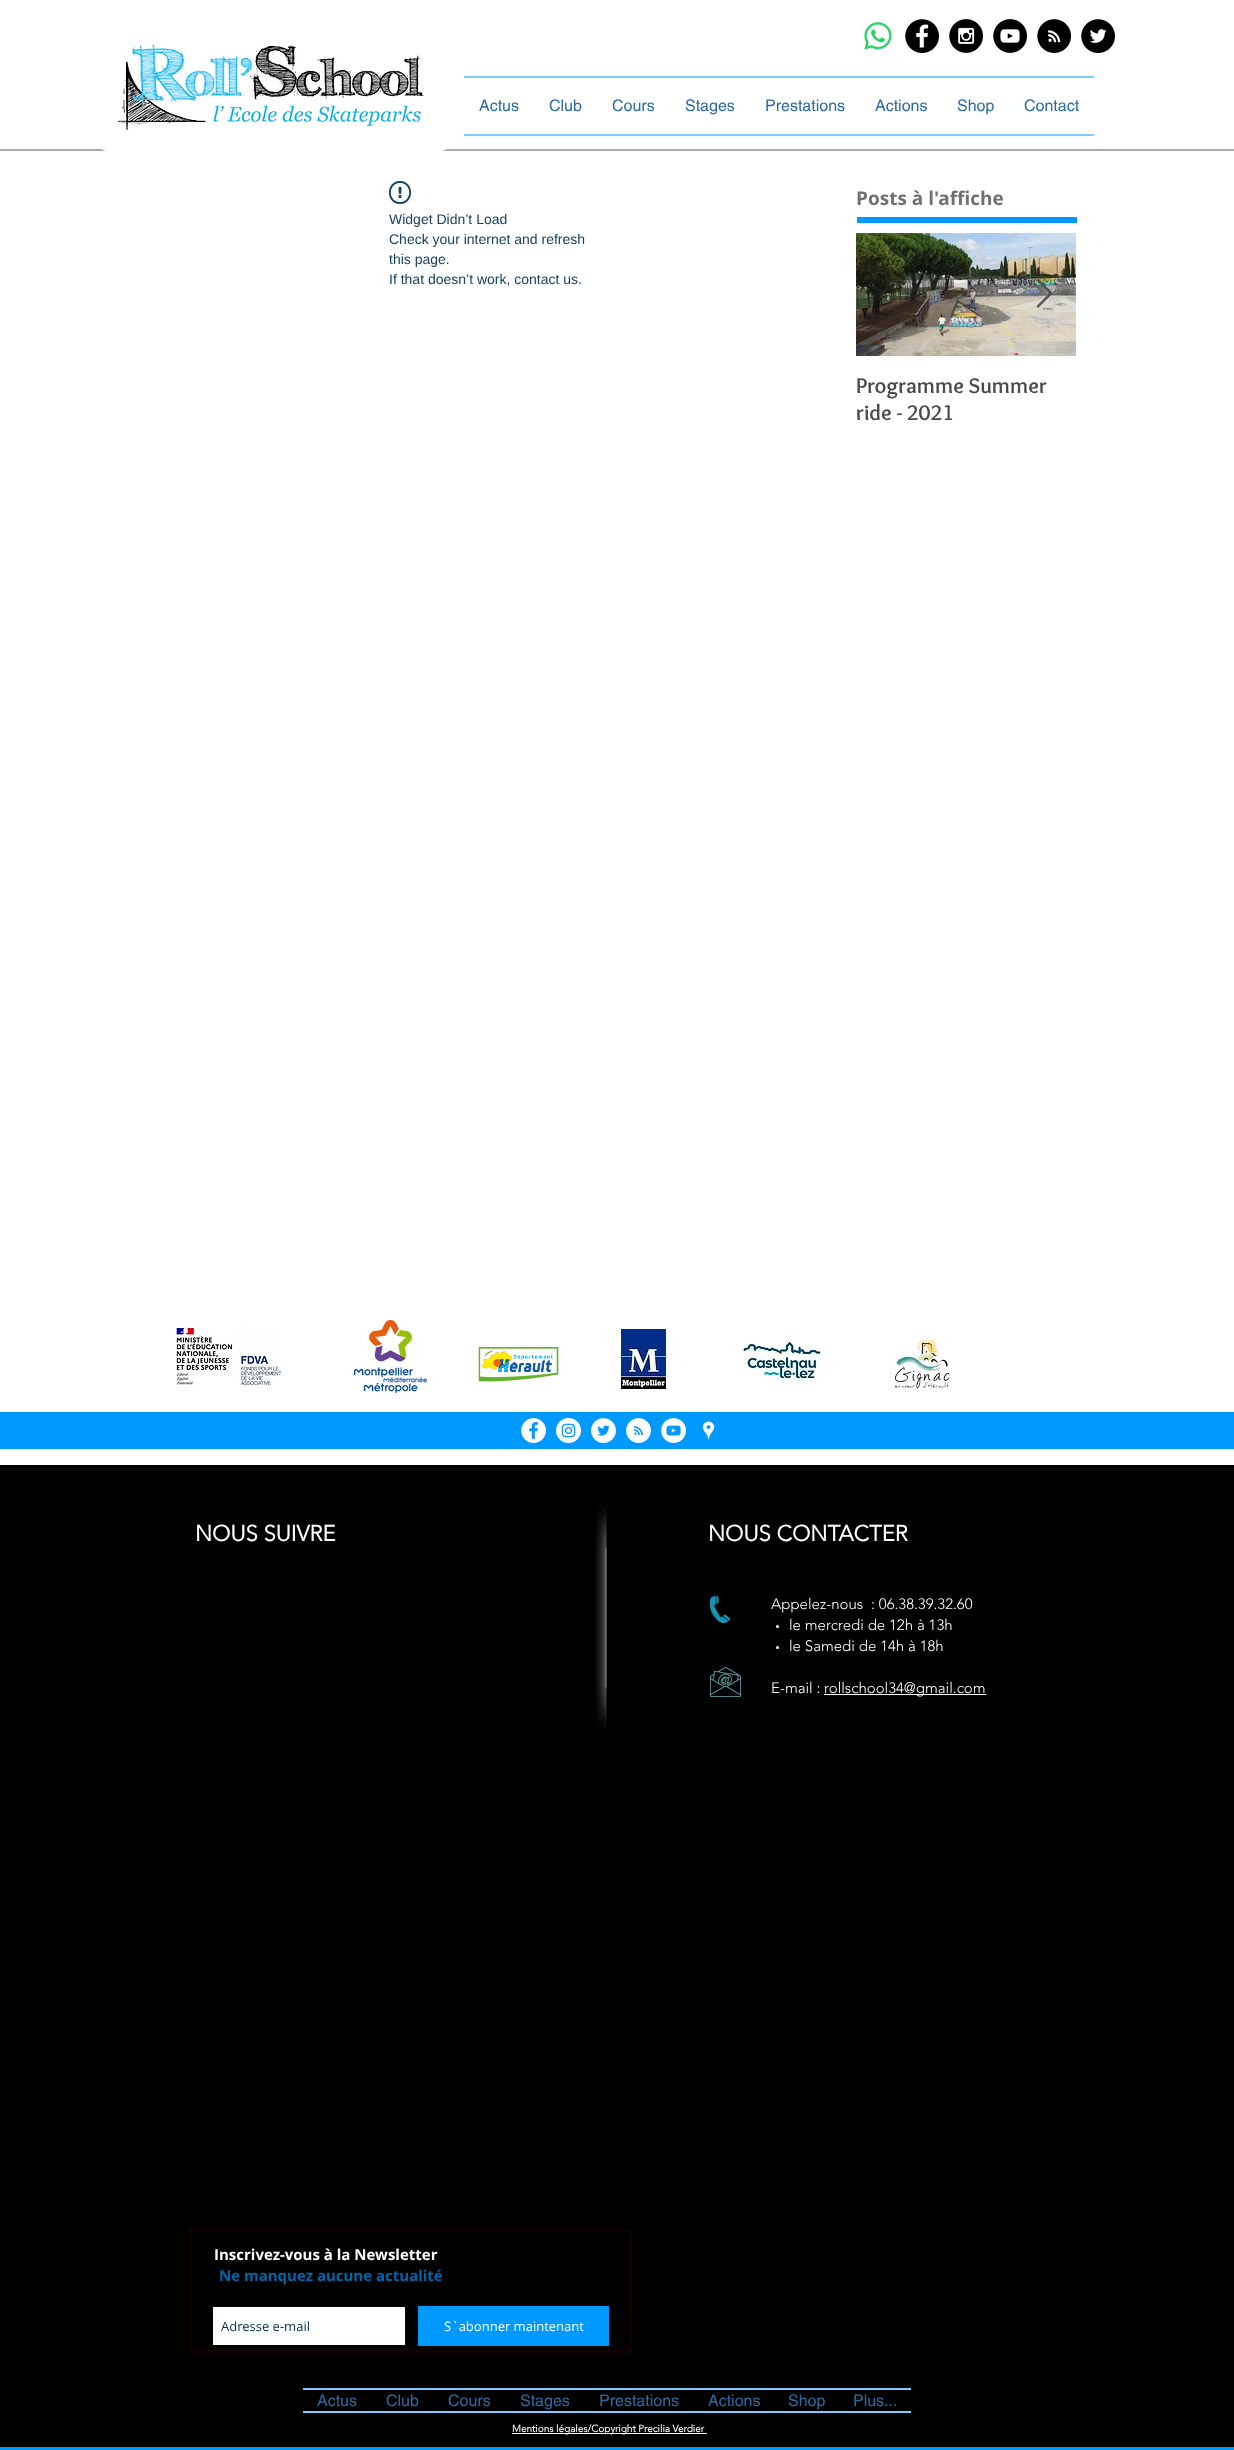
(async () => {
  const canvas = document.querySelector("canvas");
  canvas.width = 1234;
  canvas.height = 2450;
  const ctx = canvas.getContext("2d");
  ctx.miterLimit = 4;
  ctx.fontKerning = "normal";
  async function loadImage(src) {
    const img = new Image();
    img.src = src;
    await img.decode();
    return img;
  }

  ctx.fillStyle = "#ffffff";
  ctx.fillRect(0, 0, 1234, 2450);
  ctx.drawImage(await loadImage("img/1.png"), 864, 22, 28, 28);
  ctx.drawImage(await loadImage("img/2.png"), 905, 19, 34, 34);
  ctx.drawImage(await loadImage("img/3.png"), 949, 19, 34, 34);
  ctx.drawImage(await loadImage("img/4.png"), 993, 19, 34, 34);
  ctx.drawImage(await loadImage("img/5.png"), 1037, 19, 34, 34);
  ctx.drawImage(await loadImage("img/6.png"), 1081, 19, 34, 34);
  ctx.fillStyle = "#aaa8a8";
  ctx.fillRect(0, 149, 1234, 2);
  ctx.drawImage(await loadImage("img/7.png"), 101, 45, 346, 106);
  ctx.fillStyle = "#7fccff";
  ctx.fillRect(464, 76, 630, 2);
  ctx.fillRect(464, 134, 630, 2);
  ctx.drawImage(await loadImage("img/8.png"), 389, 181, 22, 23);
  ctx.fillStyle = "#0099ff";
  ctx.fillRect(857, 217, 220, 6);
  ctx.drawImage(await loadImage("img/10.png"), 856, 233, 220, 123);
  ctx.drawImage(await loadImage("img/9.png"), 1036, 279, 17, 29);
  ctx.drawImage(await loadImage("img/11.png"), 176, 1327, 106, 59);
  ctx.drawImage(await loadImage("img/12.png"), 354, 1320, 73, 73);
  ctx.drawImage(await loadImage("img/13.png"), 478, 1347, 81, 35);
  ctx.drawImage(await loadImage("img/14.png"), 621, 1329, 45, 60);
  ctx.drawImage(await loadImage("img/15.png"), 737, 1339, 85, 41);
  ctx.drawImage(await loadImage("img/16.png"), 892, 1336, 60, 56);
  ctx.fillRect(0, 1412, 1234, 37);
  ctx.drawImage(await loadImage("img/17.png"), 521, 1418, 25, 25);
  ctx.drawImage(await loadImage("img/18.png"), 556, 1418, 25, 25);
  ctx.drawImage(await loadImage("img/19.png"), 591, 1418, 25, 25);
  ctx.drawImage(await loadImage("img/20.png"), 626, 1418, 25, 25);
  ctx.drawImage(await loadImage("img/21.png"), 661, 1418, 25, 25);
  ctx.drawImage(await loadImage("img/22.png"), 702, 1421, 13, 19);
  ctx.fillStyle = "#000000";
  ctx.fillRect(0, 1465, 1234, 982);
  ctx.drawImage(await loadImage("img/23.png"), 595, 1547, 12, 141);
  ctx.drawImage(await loadImage("img/24.png"), 595, 1506, 12, 42);
  ctx.drawImage(await loadImage("img/25.png"), 595, 1687, 12, 42);
  ctx.drawImage(await loadImage("img/26.png"), 710, 1596, 20, 27);
  ctx.fillStyle = "#ffffff";
  ctx.beginPath();
  ctx.arc(777.5, 1626.5, 1.5, 0, Math.PI * 2);
  ctx.fill();
  ctx.beginPath();
  ctx.arc(777.5, 1647.5, 1.5, 0, Math.PI * 2);
  ctx.fill();
  ctx.fillRect(824, 1694, 162, 1);
  ctx.drawImage(await loadImage("img/27.png"), 710, 1667, 31, 30);
  ctx.strokeStyle = "#130000";
  ctx.lineWidth = 3;
  ctx.strokeRect(190.5, 2230.5, 440, 121);
  ctx.beginPath();
  ctx.rect(212.5, 2306.5, 193, 39);
  ctx.fill();
  ctx.strokeStyle = "#070000";
  ctx.lineWidth = 1;
  ctx.stroke();
  for (const [x, y, w, h, color] of [
    [418, 2306, 191, 40, "#0099ff"],
    [303, 2388, 608, 2, "#7fccff"],
    [303, 2411, 608, 2, "#7fccff"],
    [512, 2433, 195, 1, "#ffffff"],
    [0, 2447, 1234, 3, "#0099ff"],
  ]) {
    ctx.fillStyle = color;
    ctx.fillRect(x, y, w, h);
  }
  ctx.font = "16px helvetica";
  ctx.fillStyle = "#2b6ca3";
  for (const [text, x, y] of [
    ["Actus", 479, 111],
    ["Club", 549, 111],
    ["Cours", 612, 111],
    ["Stages", 685, 111],
    ["Prestations", 765, 111],
    ["Actions", 875, 111],
    ["Shop", 957, 111],
    ["Contact", 1024, 111],
  ]) {
    ctx.fillText(text, x, y);
  }
  ctx.font = "bold 19px Open Sans";
  ctx.fillStyle = "#717070";
  ctx.fillText("Posts à l'affiche", 856, 205);
  ctx.font = "14px Liberation Sans";
  ctx.fillStyle = "#174165";
  for (const [text, x, y] of [
    ["Widget Didn’t Load", 389, 224],
    ["Check your internet and refresh", 389, 244],
    ["this page.", 389, 264],
    ["If that doesn’t work, contact us.", 389, 284],
  ]) {
    ctx.fillText(text, x, y);
  }
  ctx.font = "bold 22px Overlock";
  ctx.fillStyle = "#4a4a4a";
  ctx.fillText("Programme Summer", 856, 393);
  ctx.fillText("ride - 2021", 856, 420);
  ctx.font = "bold 22px 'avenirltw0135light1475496'";
  ctx.fillStyle = "#ffffff";
  ctx.fillText("NOUS SUIVRE", 195, 1541);
  ctx.fillText("NOUS CONTACTER", 708, 1541);
  ctx.font = "300 15px 'avenirltw0135light1475496'";
  for (const [text, x, y] of [
    ["Appelez-nous  : 06.38.39.32.60", 771, 1609],
    ["le mercredi de 12h à 13h", 789, 1630],
    ["le Samedi de 14h à 18h", 789, 1651],
    ["E-mail :", 771, 1693],
    ["rollschool34@gmail.com", 824, 1693],
  ]) {
    ctx.fillText(text, x, y);
  }
  ctx.font = "bold 15px Open Sans";
  ctx.fillText("Inscrivez-vous à la Newsletter", 214, 2260);
  ctx.fillStyle = "#0065a9";
  ctx.fillText("Ne manquez aucune actualité", 219, 2281);
  ctx.font = "13px Open Sans";
  ctx.fillStyle = "#003254";
  ctx.fillText("Adresse e-mail", 221, 2331);
  ctx.fillStyle = "#ffffff";
  ctx.fillText("S`abonner maintenant", 444, 2331);
  ctx.font = "16px helvetica";
  ctx.fillStyle = "#2b6ca3";
  for (const [text, x, y] of [
    ["Actus", 317, 2406],
    ["Club", 386, 2406],
    ["Cours", 448, 2406],
    ["Stages", 520, 2406],
    ["Prestations", 599, 2406],
    ["Actions", 708, 2406],
    ["Shop", 788, 2406],
    ["Plus...", 853, 2406],
  ]) {
    ctx.fillText(text, x, y);
  }
  ctx.font = "bold 10px 'avenirltw0135light1475496'";
  ctx.fillStyle = "#ffffff";
  ctx.fillText("Mentions légales/Copyright Precilia Verdier", 512, 2432);
})();
